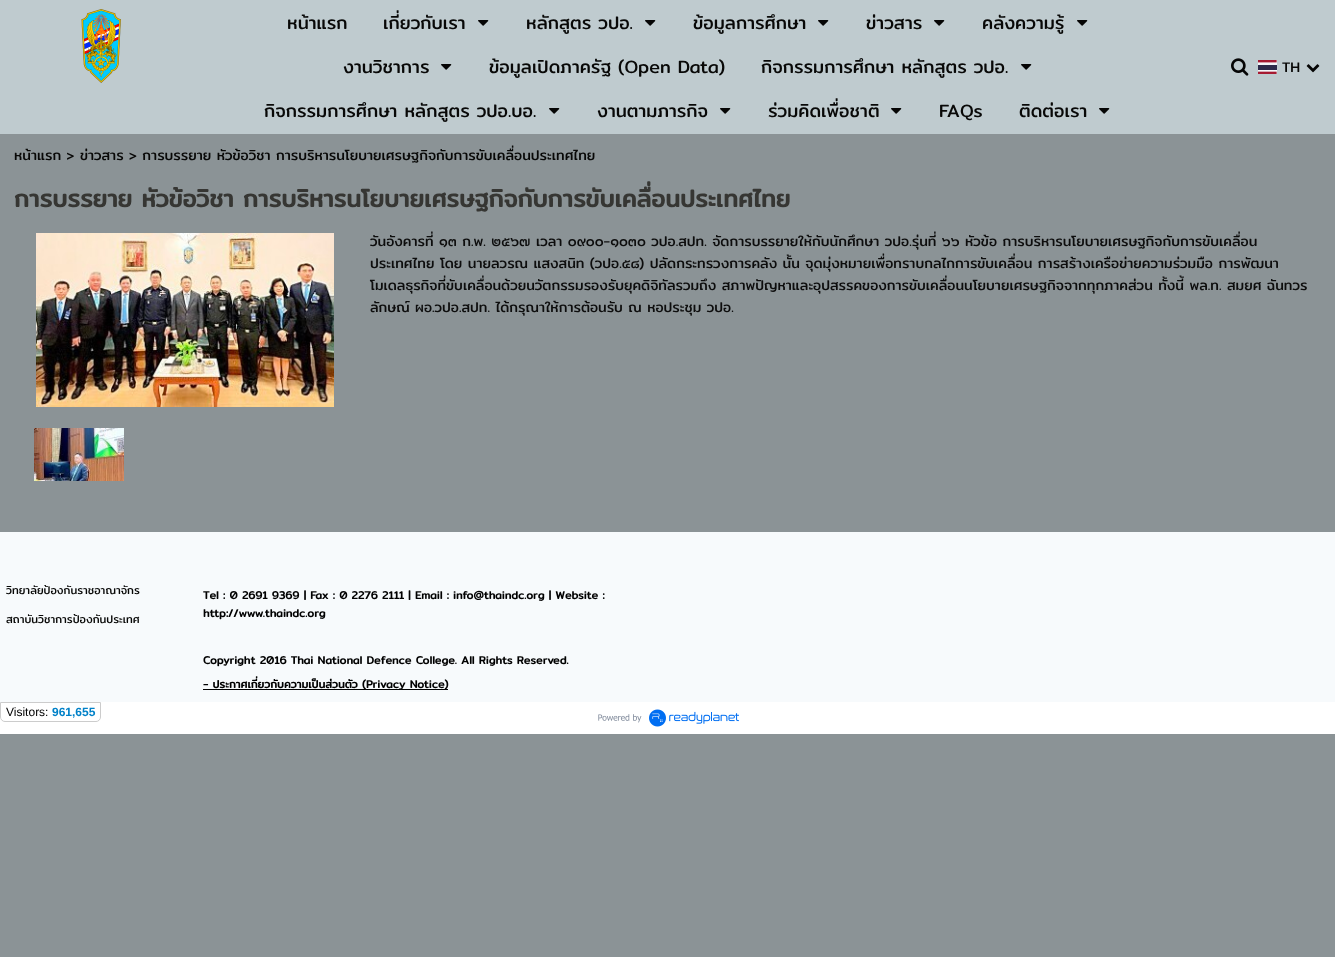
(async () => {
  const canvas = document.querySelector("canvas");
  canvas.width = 1335;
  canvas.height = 957;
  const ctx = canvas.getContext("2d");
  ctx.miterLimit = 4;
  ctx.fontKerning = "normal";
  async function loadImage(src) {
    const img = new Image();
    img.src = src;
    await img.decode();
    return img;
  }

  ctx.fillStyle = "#8b9396";
  ctx.fillRect(0, 0, 1335, 957);
  ctx.fillStyle = "#bfcbcf";
  ctx.fillRect(0, 0, 1335, 134);
  ctx.drawImage(await loadImage("img/1.png"), 81, 9, 40, 74);
  ctx.drawImage(await loadImage("img/2.png"), 478, 20, 11, 6);
  ctx.drawImage(await loadImage("img/2.png"), 645, 20, 11, 6);
  ctx.drawImage(await loadImage("img/2.png"), 818, 20, 11, 6);
  ctx.drawImage(await loadImage("img/2.png"), 934, 20, 11, 6);
  ctx.drawImage(await loadImage("img/2.png"), 1077, 20, 11, 6);
  ctx.drawImage(await loadImage("img/2.png"), 441, 64, 11, 6);
  ctx.drawImage(await loadImage("img/2.png"), 1021, 64, 11, 6);
  ctx.drawImage(await loadImage("img/2.png"), 549, 108, 11, 6);
  ctx.drawImage(await loadImage("img/2.png"), 720, 108, 11, 6);
  ctx.drawImage(await loadImage("img/2.png"), 891, 108, 11, 6);
  ctx.drawImage(await loadImage("img/2.png"), 1099, 108, 11, 6);
  ctx.drawImage(await loadImage("img/3.png"), 1231, 58, 18, 18);
  ctx.drawImage(await loadImage("img/4.png"), 1258, 60, 19, 14);
  ctx.drawImage(await loadImage("img/5.png"), 1306, 64, 14, 9);
  ctx.drawImage(await loadImage("img/6.png"), 36, 233, 298, 174);
  ctx.drawImage(await loadImage("img/7.png"), 34, 428, 90, 53);
  for (const [x, y, w, h, color] of [
    [0, 532, 1335, 170, "#f7fafc"],
    [203, 689, 245, 1, "#000000"],
    [0, 702, 1335, 32, "#ffffff"],
  ]) {
    ctx.fillStyle = color;
    ctx.fillRect(x, y, w, h);
  }
  ctx.drawImage(await loadImage("img/8.png"), 598, 709, 141, 18);
  ctx.beginPath();
  ctx.roundRect(0.5, 702.5, 100, 19, [0, 0, 4.5, 4.5]);
  ctx.strokeStyle = "#cccccc";
  ctx.stroke();
  ctx.font = "18px Mitr";
  ctx.fillStyle = "#080807";
  for (const [text, x, y] of [
    ["หน้าแรก", 287, 29],
    ["เกี่ยวกับเรา", 383, 29],
    ["หลักสูตร วปอ.", 526, 29],
    ["ข้อมูลการศึกษา", 693, 29],
    ["ข่าวสาร", 866, 29],
    ["คลังความรู้", 982, 29],
    ["งานวิชาการ", 343, 73],
    ["ข้อมูลเปิดภาครัฐ (Open Data)", 489, 73],
    ["กิจกรรมการศึกษา หลักสูตร วปอ.", 761, 73],
    ["กิจกรรมการศึกษา หลักสูตร วปอ.บอ.", 264, 117],
    ["งานตามภารกิจ", 597, 117],
    ["ร่วมคิดเพื่อชาติ", 768, 117],
    ["FAQs", 939, 117],
    ["ติดต่อเรา", 1019, 117],
  ]) {
    ctx.fillText(text, x, y);
  }
  ctx.font = "14px Mitr";
  ctx.fillText("TH", 1282, 72);
  ctx.fillText("หน้าแรก > ข่าวสาร > การบรรยาย หัวข้อวิชา การบริหารนโยบายเศรษฐกิจกับการขับเคลื่อนประเทศไทย", 14, 160);
  ctx.font = "bold 24px Mitr";
  ctx.fillStyle = "#363633";
  ctx.fillText("การบรรยาย หัวข้อวิชา การบริหารนโยบายเศรษฐกิจกับการขับเคลื่อนประเทศไทย", 14, 207);
  ctx.font = "14px Mitr";
  ctx.fillStyle = "#0d0d0d";
  for (const [text, x, y] of [
    ["วันอังคารที่ ๑๓ ก.พ. ๒๕๖๗ เวลา ๐๙๐๐-๑๐๓๐ วปอ.สปท. จัดการบรรยายให้กับนักศึกษา วปอ.รุ่นที่ ๖๖ หัวข้อ การบริหารนโยบายเศรษฐกิจกับการขับเคลื่อน", 370, 246],
    ["ประเทศไทย โดย นายลวรณ แสงสนิท (วปอ.๕๘) ปลัดกระทรวงการคลัง นั้น จุดมุ่งหมายเพื่อทราบกลไกการขับเคลื่อน การสร้างเครือข่ายความร่วมมือ การพัฒนา", 370, 268],
    ["โมเดลธุรกิจที่ขับเคลื่อนด้วยนวัตกรรมรองรับยุคดิจิทัลรวมถึง สภาพปัญหาและอุปสรรคของการขับเคลื่อนนโยบายเศรษฐกิจจากทุกภาคส่วน ทั้งนี้ พล.ท. สมยศ ฉันทวร", 370, 290],
    ["ลักษณ์ ผอ.วปอ.สปท. ได้กรุณาให้การต้อนรับ ณ หอประชุม วปอ.", 370, 312],
  ]) {
    ctx.fillText(text, x, y);
  }
  ctx.font = "11px Mitr";
  ctx.fillStyle = "#080807";
  ctx.fillText("วิทยาลัยป้องกันราชอาณาจักร", 6, 594);
  ctx.fillText("สถาบันวิชาการป้องกันประเทศ", 6, 623);
  ctx.font = "bold 11px Mitr";
  ctx.fillStyle = "#000000";
  for (const [text, x, y] of [
    ["Tel : 0 2691 9369 | Fax : 0 2276 2111 | Email : info@thaindc.org | Website :", 203, 599],
    ["http://www.thaindc.org", 203, 617],
    ["Copyright 2016 Thai National Defence College. All Rights Reserved.", 203, 664],
    ["- ประกาศเกี่ยวกับความเป็นส่วนตัว (Privacy Notice)", 203, 688],
  ]) {
    ctx.fillText(text, x, y);
  }
  ctx.font = "12px Liberation Sans";
  ctx.fillText("Visitors:", 6, 716);
  ctx.font = "bold 12px Liberation Sans";
  ctx.fillStyle = "#0081c8";
  ctx.fillText("961,655", 52, 716);
})();
